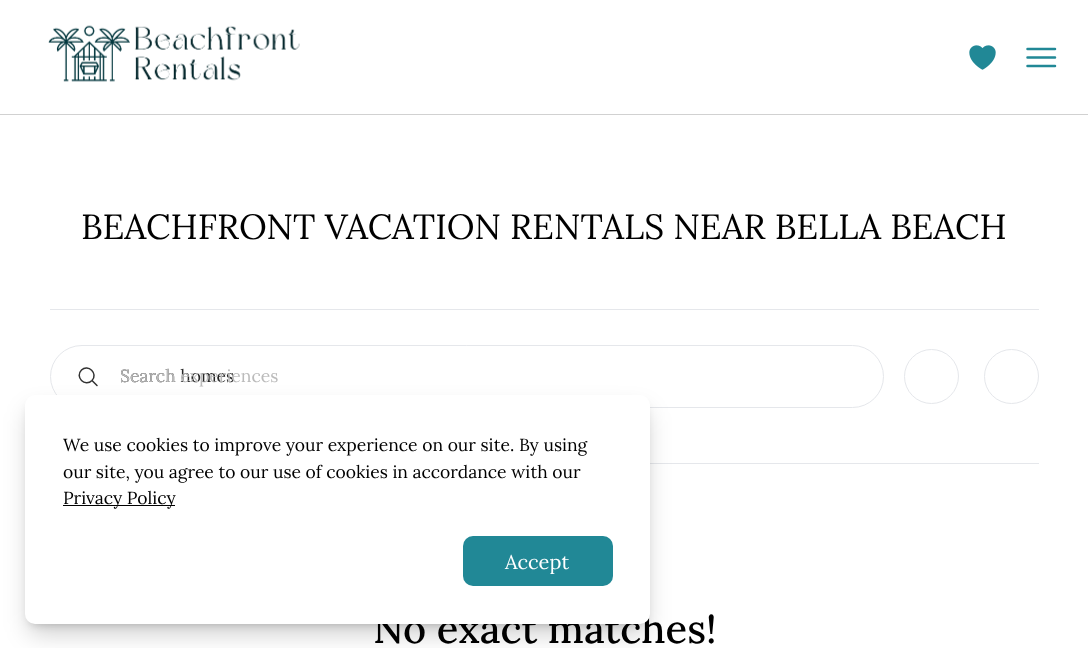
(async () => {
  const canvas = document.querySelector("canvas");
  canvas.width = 1088;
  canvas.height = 648;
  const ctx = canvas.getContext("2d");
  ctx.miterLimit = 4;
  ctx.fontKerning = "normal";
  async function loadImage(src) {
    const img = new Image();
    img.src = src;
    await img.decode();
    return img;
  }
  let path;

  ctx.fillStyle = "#ffffff";
  ctx.fillRect(0, 0, 1088, 648);
  ctx.fillStyle = "#d1d1d1";
  ctx.fillRect(0, 114, 1088, 1);
  ctx.drawImage(await loadImage("img/1.png"), 48, 25, 252, 57);
  ctx.drawImage(await loadImage("img/2.png"), 969, 45, 27, 25);
  path = new Path2D("M1027.5 49H1055M1027.5 57.5H1055M1027.5 66H1055");
  ctx.strokeStyle = "#218896";
  ctx.lineWidth = 2.5;
  ctx.lineCap = "round";
  ctx.lineJoin = "round";
  ctx.stroke(path);
  ctx.fillStyle = "#e5e7eb";
  ctx.fillRect(50, 309, 989, 1);
  ctx.fillRect(650, 463, 389, 1);
  ctx.beginPath();
  ctx.roundRect(50.5, 345.5, 833, 62, 31);
  ctx.strokeStyle = "#e5e7eb";
  ctx.lineWidth = 1;
  ctx.lineJoin = "miter";
  ctx.stroke();
  path = new Path2D("M97 385.5L92 380.5M92 380.5C98.5 373.5 88 363.5 81.5 370C74.5 377 85 387.5 92 380.5Z");
  ctx.strokeStyle = "#333333";
  ctx.lineWidth = 1.5;
  ctx.lineJoin = "round";
  ctx.stroke(path);
  ctx.beginPath();
  ctx.arc(931.5, 376.5, 27, 0, Math.PI * 2);
  ctx.strokeStyle = "#e5e7eb";
  ctx.lineWidth = 1;
  ctx.stroke();
  ctx.beginPath();
  ctx.arc(1011.5, 376.5, 27, 0, Math.PI * 2);
  ctx.stroke();
  ctx.fillStyle = "rgba(0, 0, 0, 0.2)";
  ctx.filter = "blur(4px)";
  ctx.beginPath();
  ctx.roundRect(30, 405, 615, 219, 5);
  ctx.fill();
  ctx.filter = "none";
  ctx.filter = "blur(12.5px)";
  ctx.beginPath();
  ctx.roundRect(29, 411, 617, 222, 6);
  ctx.fill();
  ctx.filter = "none";
  ctx.font = "35px Lora";
  ctx.fillStyle = "#000000";
  ctx.fillText("BEACHFRONT VACATION RENTALS NEAR BELLA BEACH", 81, 239);
  ctx.font = "17.5px Lora";
  ctx.fillStyle = "#262626";
  ctx.fillText("Search homes", 120, 382);
  ctx.fillStyle = "#bbbbbb";
  ctx.fillText("Search experiences", 120, 382);
  ctx.font = "500 40px Lora";
  ctx.fillStyle = "#000000";
  ctx.fillText("No exact matches!", 373, 643);
  ctx.fillStyle = "#ffffff";
  ctx.beginPath();
  ctx.roundRect(25, 395, 625, 229, 10);
  ctx.fill();
  ctx.font = "17.5px Lora";
  ctx.fillStyle = "#000000";
  ctx.fillText("We use cookies to improve your experience on our site. By using", 63, 451);
  ctx.fillText("our site, you agree to our use of cookies in accordance with our", 63, 478);
  ctx.fillRect(63, 505, 112, 1);
  ctx.fillText("Privacy Policy", 63, 504);
  ctx.fillStyle = "#218896";
  ctx.beginPath();
  ctx.roundRect(463, 536, 150, 50, 10);
  ctx.fill();
  ctx.font = "20px Lora";
  ctx.fillStyle = "#ffffff";
  ctx.fillText("Accept", 505, 569);
})();
